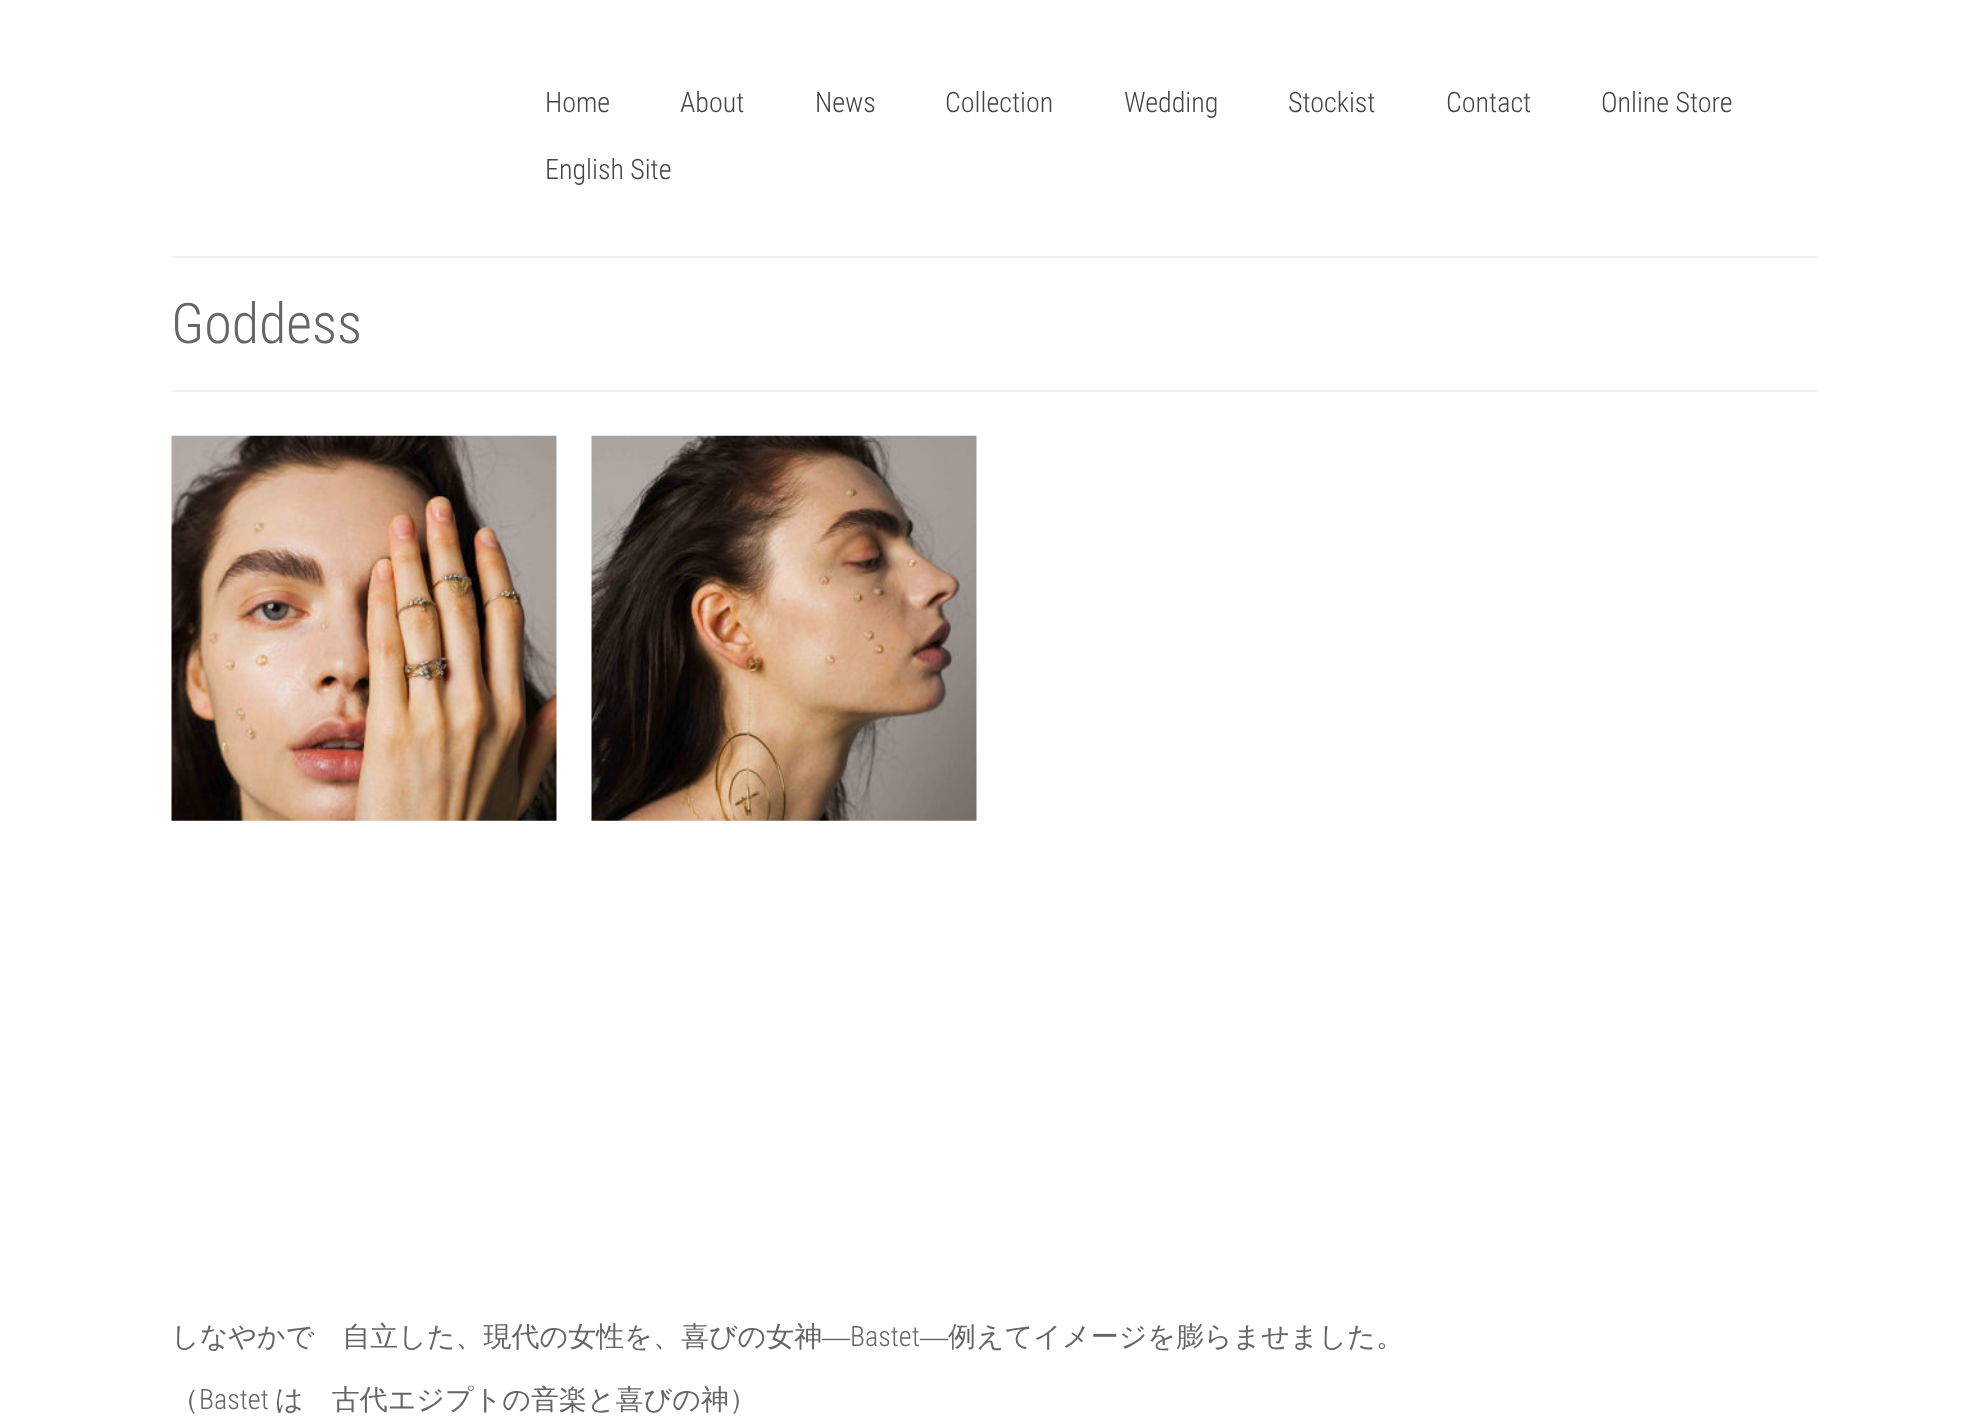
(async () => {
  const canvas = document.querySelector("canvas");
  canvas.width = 1985;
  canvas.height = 1419;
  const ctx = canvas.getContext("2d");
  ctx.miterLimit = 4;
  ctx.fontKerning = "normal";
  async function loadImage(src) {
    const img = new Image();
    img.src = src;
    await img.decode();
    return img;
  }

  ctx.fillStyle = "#ffffff";
  ctx.fillRect(0, 0, 1985, 1419);
  ctx.fillStyle = "#f2f2f2";
  ctx.fillRect(172, 256, 1645, 2);
  ctx.fillRect(172, 390, 1645, 2);
  ctx.drawImage(await loadImage("img/1.png"), 171, 435, 386, 386);
  ctx.drawImage(await loadImage("img/2.png"), 591, 435, 386, 386);
  ctx.font = "300 28px Roboto Condensed";
  ctx.fillStyle = "#444444";
  for (const [text, x, y] of [
    ["Home", 545, 112],
    ["About", 680, 112],
    ["News", 815, 112],
    ["Collection", 945, 112],
    ["Wedding", 1124, 112],
    ["Stockist", 1288, 112],
    ["Contact", 1446, 112],
    ["Online Store", 1601, 112],
    ["English Site", 545, 179],
  ]) {
    ctx.fillText(text, x, y);
  }
  ctx.font = "300 56px Roboto Condensed";
  ctx.fillStyle = "#666666";
  ctx.fillText("Goddess", 171, 343);
  ctx.font = "500 28px WenQuanYi Zen Hei";
  ctx.fillText("しなやかで　自立した、現代の女性を、喜びの女神", 171, 1346);
  ctx.font = "28px Liberation Serif";
  ctx.fillText("―", 822, 1346);
  ctx.font = "300 28px Roboto Condensed";
  ctx.fillText("Bastet", 850, 1346);
  ctx.font = "28px Liberation Serif";
  ctx.fillText("―", 920, 1346);
  ctx.font = "500 28px WenQuanYi Zen Hei";
  ctx.fillText("例えてイメージを膨らませました。", 948, 1346);
  ctx.fillText("（", 171, 1409);
  ctx.font = "300 28px Roboto Condensed";
  ctx.fillText("Bastet", 199, 1409);
  ctx.font = "500 28px WenQuanYi Zen Hei";
  ctx.fillText("は　古代エジプトの音楽と喜びの神）", 275, 1409);
})();
